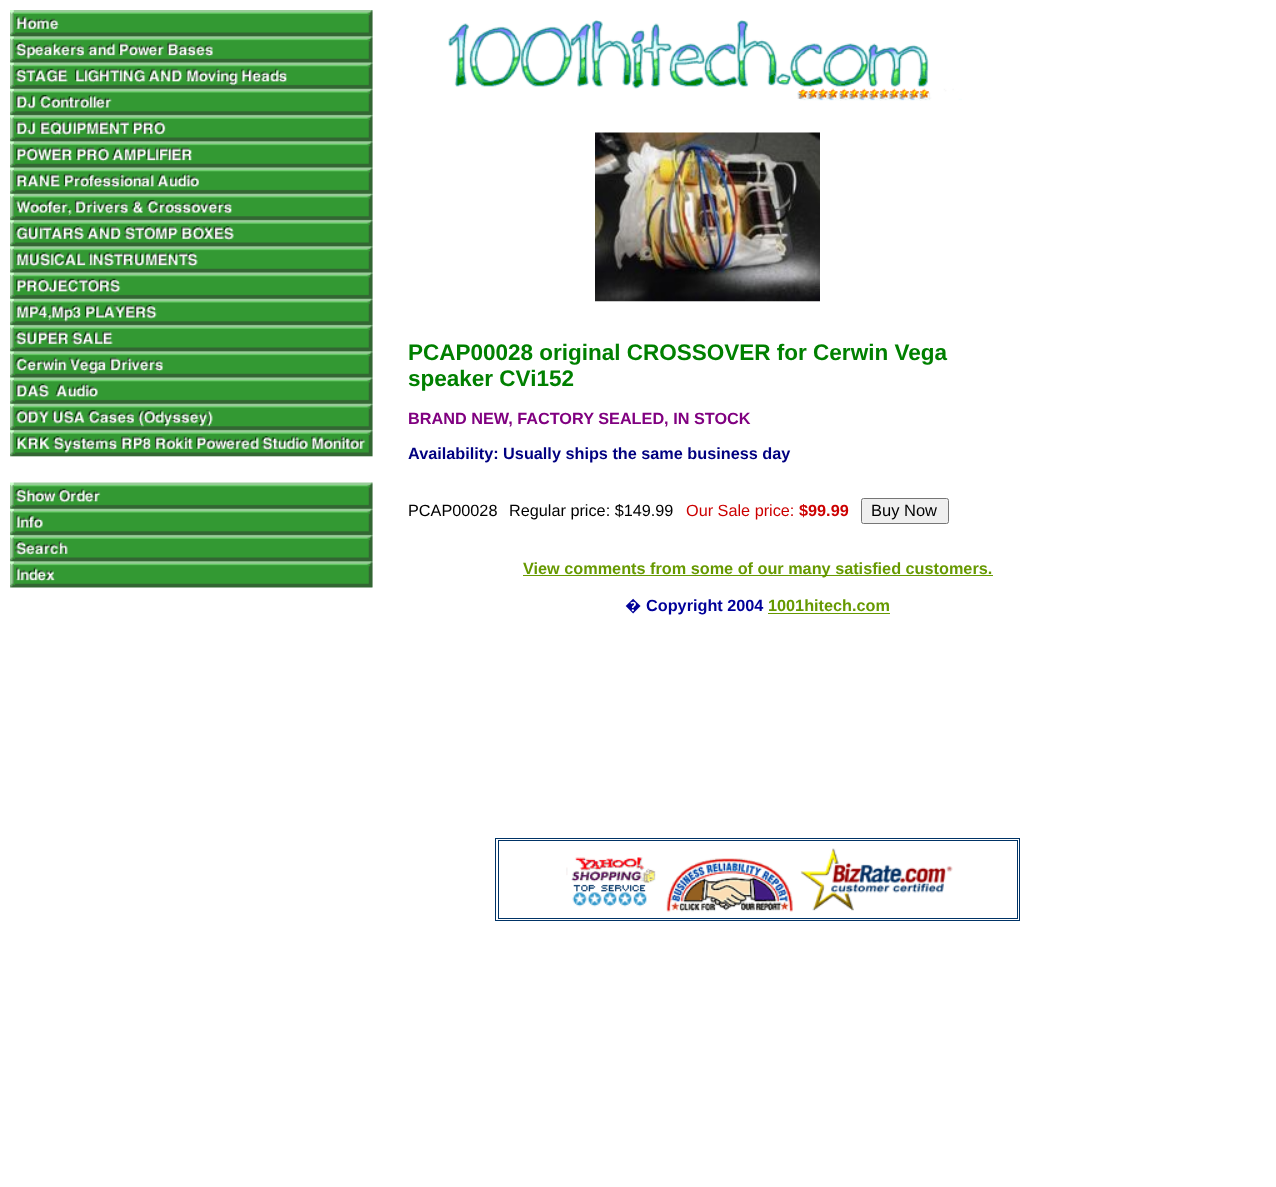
(async () => {
  const canvas = document.querySelector("canvas");
  canvas.width = 1276;
  canvas.height = 1187;
  const ctx = canvas.getContext("2d");
  ctx.miterLimit = 4;
  ctx.fontKerning = "normal";
  async function loadImage(src) {
    const img = new Image();
    img.src = src;
    await img.decode();
    return img;
  }

  ctx.fillStyle = "#ffffff";
  ctx.fillRect(0, 0, 1276, 1187);
  ctx.drawImage(await loadImage("img/1.png"), 10, 10, 363, 578);
  ctx.drawImage(await loadImage("img/2.png"), 448, 20, 514, 81);
  ctx.drawImage(await loadImage("img/3.png"), 595, 132, 225, 170);
  ctx.fillStyle = "#efefef";
  ctx.beginPath();
  ctx.roundRect(861.5, 498.5, 87, 25, 2);
  ctx.fill();
  ctx.strokeStyle = "#767676";
  ctx.stroke();
  ctx.fillStyle = "#669900";
  ctx.fillRect(523, 575, 470, 1);
  ctx.fillRect(768, 613, 122, 1);
  ctx.strokeStyle = "#003366";
  ctx.strokeRect(495.5, 838.5, 524, 82);
  ctx.strokeRect(498.5, 840.5, 519, 78);
  ctx.drawImage(await loadImage("img/4.png"), 566, 857, 90, 50);
  ctx.drawImage(await loadImage("img/5.png"), 666, 858, 127, 54);
  ctx.drawImage(await loadImage("img/6.png"), 800, 848, 153, 63);
  ctx.font = "bold 22.5px Liberation Sans";
  ctx.fillStyle = "#008000";
  ctx.fillText("PCAP00028 original CROSSOVER for Cerwin Vega", 408, 360);
  ctx.fillText("speaker CVi152", 408, 386);
  ctx.font = "bold 16.25px Liberation Sans";
  ctx.fillStyle = "#800080";
  ctx.fillText("BRAND NEW, FACTORY SEALED, IN STOCK", 408, 424);
  ctx.fillStyle = "#000080";
  ctx.fillText("Availability: Usually ships the same business day", 408, 459);
  ctx.font = "16.25px Liberation Sans";
  ctx.fillStyle = "#000000";
  ctx.fillText("PCAP00028", 408, 516);
  ctx.fillText("Regular price: $149.99", 509, 516);
  ctx.fillStyle = "#cc0000";
  ctx.fillText("Our Sale price:", 686, 516);
  ctx.font = "bold 16.25px Liberation Sans";
  ctx.fillText("$99.99", 799, 516);
  ctx.font = "16.5px Liberation Sans";
  ctx.fillStyle = "#000000";
  ctx.fillText("Buy Now", 871, 516);
  ctx.font = "bold 16.25px Liberation Sans";
  ctx.fillStyle = "#669900";
  ctx.fillText("View comments from some of our many satisfied customers.", 523, 574);
  ctx.font = "bold 16.25px Noto Sans";
  ctx.fillStyle = "#000099";
  ctx.fillText("�", 625, 611);
  ctx.font = "bold 16.25px Liberation Sans";
  ctx.fillText("Copyright 2004", 646, 611);
  ctx.fillStyle = "#669900";
  ctx.fillText("1001hitech.com", 768, 611);
})();
